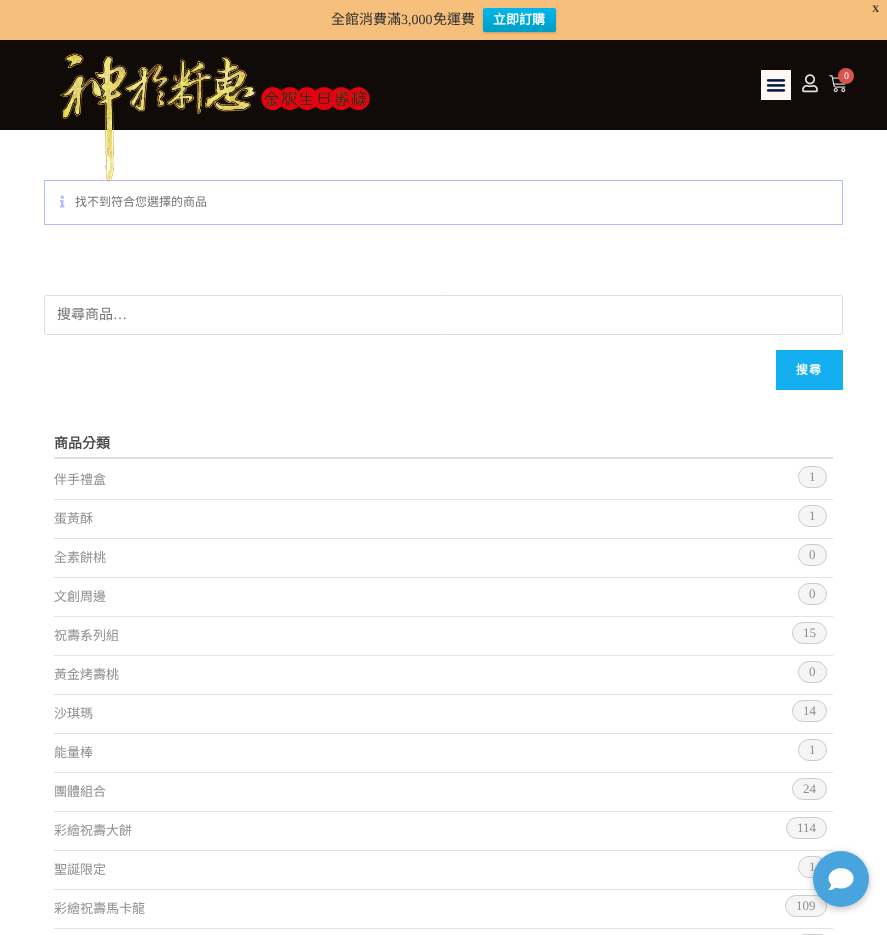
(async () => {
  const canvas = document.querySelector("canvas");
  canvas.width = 887;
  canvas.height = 935;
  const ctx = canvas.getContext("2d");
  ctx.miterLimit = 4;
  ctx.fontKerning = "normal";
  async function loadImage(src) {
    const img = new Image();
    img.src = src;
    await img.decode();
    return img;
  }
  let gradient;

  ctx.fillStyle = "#ffffff";
  ctx.fillRect(0, 0, 887, 935);
  ctx.fillStyle = "#f6c07c";
  ctx.fillRect(0, 0, 887, 40);
  ctx.fillStyle = "rgba(0, 0, 0, 0.2)";
  ctx.filter = "blur(1px)";
  ctx.beginPath();
  ctx.roundRect(483, 9, 73, 24, 2);
  ctx.fill();
  ctx.filter = "none";
  gradient = ctx.createLinearGradient(520, 8, 520, 32);
  gradient.addColorStop(0, "#00b7ea");
  gradient.addColorStop(1, "#009ec3");
  ctx.fillStyle = gradient;
  ctx.beginPath();
  ctx.roundRect(483, 8, 73, 24, 2);
  ctx.fill();
  ctx.fillStyle = "#100b08";
  ctx.fillRect(0, 40, 887, 90);
  ctx.strokeStyle = "#b1befd";
  ctx.strokeRect(44.5, 180.5, 798, 44);
  ctx.drawImage(await loadImage("img/1.png"), 60, 53, 310, 129);
  ctx.fillStyle = "#fff7f1";
  ctx.fillRect(761, 70, 30, 30);
  ctx.drawImage(await loadImage("img/2.png"), 766, 79, 20, 13);
  ctx.drawImage(await loadImage("img/3.png"), 802, 74, 16, 19);
  ctx.drawImage(await loadImage("img/4.png"), 829, 75, 18, 18);
  ctx.fillStyle = "#d9534f";
  ctx.beginPath();
  ctx.arc(846, 76, 8, 0, Math.PI * 2);
  ctx.fill();
  ctx.drawImage(await loadImage("img/5.png"), 60, 195, 5, 13);
  ctx.beginPath();
  ctx.roundRect(44.5, 295.5, 798, 39, 2.5);
  ctx.strokeStyle = "#dddddd";
  ctx.stroke();
  for (const [x, y, w, h, color] of [
    [776, 350, 67, 40, "#13aff0"],
    [54, 457, 779, 2, "#e0e0e0"],
    [54, 499, 779, 1, "#e2e2e2"],
  ]) {
    ctx.fillStyle = color;
    ctx.fillRect(x, y, w, h);
  }
  ctx.fillStyle = "#f5f5f5";
  ctx.beginPath();
  ctx.roundRect(798.5, 466.5, 28, 21, 10.5);
  ctx.fill();
  ctx.strokeStyle = "#cccccc";
  ctx.stroke();
  ctx.fillStyle = "#e2e2e2";
  ctx.fillRect(54, 538, 779, 1);
  ctx.fillStyle = "#f5f5f5";
  ctx.beginPath();
  ctx.roundRect(798.5, 505.5, 28, 21, 10.5);
  ctx.fill();
  ctx.stroke();
  ctx.fillStyle = "#e2e2e2";
  ctx.fillRect(54, 577, 779, 1);
  ctx.fillStyle = "#f5f5f5";
  ctx.beginPath();
  ctx.roundRect(798.5, 544.5, 28, 21, 10.5);
  ctx.fill();
  ctx.stroke();
  ctx.fillStyle = "#e2e2e2";
  ctx.fillRect(54, 616, 779, 1);
  ctx.fillStyle = "#f5f5f5";
  ctx.beginPath();
  ctx.roundRect(798.5, 583.5, 28, 21, 10.5);
  ctx.fill();
  ctx.stroke();
  ctx.fillStyle = "#e2e2e2";
  ctx.fillRect(54, 655, 779, 1);
  ctx.fillStyle = "#f5f5f5";
  ctx.beginPath();
  ctx.roundRect(792.5, 622.5, 34, 21, 10.5);
  ctx.fill();
  ctx.stroke();
  ctx.fillStyle = "#e2e2e2";
  ctx.fillRect(54, 694, 779, 1);
  ctx.fillStyle = "#f5f5f5";
  ctx.beginPath();
  ctx.roundRect(798.5, 661.5, 28, 21, 10.5);
  ctx.fill();
  ctx.stroke();
  ctx.fillStyle = "#e2e2e2";
  ctx.fillRect(54, 733, 779, 1);
  ctx.fillStyle = "#f5f5f5";
  ctx.beginPath();
  ctx.roundRect(792.5, 700.5, 34, 21, 10.5);
  ctx.fill();
  ctx.stroke();
  ctx.fillStyle = "#e2e2e2";
  ctx.fillRect(54, 772, 779, 1);
  ctx.fillStyle = "#f5f5f5";
  ctx.beginPath();
  ctx.roundRect(798.5, 739.5, 28, 21, 10.5);
  ctx.fill();
  ctx.stroke();
  ctx.fillStyle = "#e2e2e2";
  ctx.fillRect(54, 811, 779, 1);
  ctx.fillStyle = "#f5f5f5";
  ctx.beginPath();
  ctx.roundRect(792.5, 778.5, 34, 21, 10.5);
  ctx.fill();
  ctx.stroke();
  ctx.fillStyle = "#e2e2e2";
  ctx.fillRect(54, 850, 779, 1);
  ctx.fillStyle = "#f5f5f5";
  ctx.beginPath();
  ctx.roundRect(786.5, 817.5, 40, 21, 10.5);
  ctx.fill();
  ctx.stroke();
  ctx.fillStyle = "#e2e2e2";
  ctx.fillRect(54, 889, 762, 1);
  ctx.fillStyle = "#f5f5f5";
  ctx.beginPath();
  ctx.roundRect(798.5, 856.5, 28, 21, 10.5);
  ctx.fill();
  ctx.stroke();
  ctx.fillStyle = "#e2e2e2";
  ctx.fillRect(54, 928, 779, 1);
  ctx.fillStyle = "#f5f5f5";
  ctx.beginPath();
  ctx.roundRect(785.5, 895.5, 41, 21, 10.5);
  ctx.fill();
  ctx.stroke();
  ctx.beginPath();
  ctx.roundRect(798.5, 934.5, 28, 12, 10.5);
  ctx.stroke();
  ctx.fillStyle = "rgba(0, 0, 0, 0.2)";
  ctx.filter = "blur(3px)";
  ctx.beginPath();
  ctx.roundRect(812, 852, 58, 58, 29);
  ctx.fill();
  ctx.filter = "none";
  ctx.font = "bold 10px Liberation Serif";
  ctx.fillStyle = "#292929";
  ctx.fillText("X", 872, 12);
  ctx.font = "14px Noto Sans CJK TC";
  ctx.fillStyle = "#303030";
  ctx.fillText("全館消費滿", 331, 24);
  ctx.font = "14px Liberation Serif";
  ctx.fillText("3,000", 401, 24);
  ctx.font = "14px Noto Sans CJK TC";
  ctx.fillText("免運費", 433, 24);
  ctx.font = "bold 13px Noto Sans CJK TC";
  ctx.fillStyle = "#ffffff";
  ctx.fillText("立即訂購", 493, 24);
  ctx.font = "10px Liberation Serif";
  ctx.fillText("0", 844, 79);
  ctx.font = "12px Noto Sans CJK TC";
  ctx.fillStyle = "#757575";
  ctx.fillText("找不到符合您選擇的商品", 75, 206);
  ctx.font = "14px Noto Sans CJK TC";
  ctx.fillText("搜尋商品", 57, 319);
  ctx.font = "14px Liberation Serif";
  ctx.fillText("…", 113, 319);
  ctx.letterSpacing = "1px";
  ctx.font = "bold 12px Noto Sans CJK TC";
  ctx.fillStyle = "#ffffff";
  ctx.fillText("搜尋", 796, 374);
  ctx.letterSpacing = "0px";
  ctx.font = "bold 14px Noto Sans CJK TC";
  ctx.fillStyle = "#484848";
  ctx.fillText("商品分類", 54, 448);
  ctx.font = "13px Noto Sans CJK TC";
  ctx.fillStyle = "#909090";
  ctx.fillText("伴手禮盒", 54, 484);
  ctx.font = "13px Liberation Serif";
  ctx.fillText("1", 809, 481);
  ctx.font = "13px Noto Sans CJK TC";
  ctx.fillText("蛋黃酥", 54, 523);
  ctx.font = "13px Liberation Serif";
  ctx.fillText("1", 809, 520);
  ctx.font = "13px Noto Sans CJK TC";
  ctx.fillText("全素餅桃", 54, 562);
  ctx.font = "13px Liberation Serif";
  ctx.fillText("0", 809, 559);
  ctx.font = "13px Noto Sans CJK TC";
  ctx.fillText("文創周邊", 54, 601);
  ctx.font = "13px Liberation Serif";
  ctx.fillText("0", 809, 598);
  ctx.font = "13px Noto Sans CJK TC";
  ctx.fillText("祝壽系列組", 54, 640);
  ctx.font = "13px Liberation Serif";
  ctx.fillText("15", 803, 637);
  ctx.font = "13px Noto Sans CJK TC";
  ctx.fillText("黃金烤壽桃", 54, 679);
  ctx.font = "13px Liberation Serif";
  ctx.fillText("0", 809, 676);
  ctx.font = "13px Noto Sans CJK TC";
  ctx.fillText("沙琪瑪", 54, 718);
  ctx.font = "13px Liberation Serif";
  ctx.fillText("14", 803, 715);
  ctx.font = "13px Noto Sans CJK TC";
  ctx.fillText("能量棒", 54, 757);
  ctx.font = "13px Liberation Serif";
  ctx.fillText("1", 809, 754);
  ctx.font = "13px Noto Sans CJK TC";
  ctx.fillText("團體組合", 54, 796);
  ctx.font = "13px Liberation Serif";
  ctx.fillText("24", 803, 793);
  ctx.font = "13px Noto Sans CJK TC";
  ctx.fillText("彩繪祝壽大餅", 54, 835);
  ctx.font = "13px Liberation Serif";
  ctx.fillText("114", 797, 832);
  ctx.font = "13px Noto Sans CJK TC";
  ctx.fillText("聖誕限定", 54, 874);
  ctx.font = "13px Liberation Serif";
  ctx.fillText("1", 809, 871);
  ctx.font = "13px Noto Sans CJK TC";
  ctx.fillText("彩繪祝壽馬卡龍", 54, 913);
  ctx.font = "13px Liberation Serif";
  ctx.fillText("109", 796, 910);
  ctx.fillStyle = "#48a4dc";
  ctx.beginPath();
  ctx.arc(841, 879, 28, 0, Math.PI * 2);
  ctx.fill();
  ctx.drawImage(await loadImage("img/6.png"), 828, 868, 26, 22);
})();
